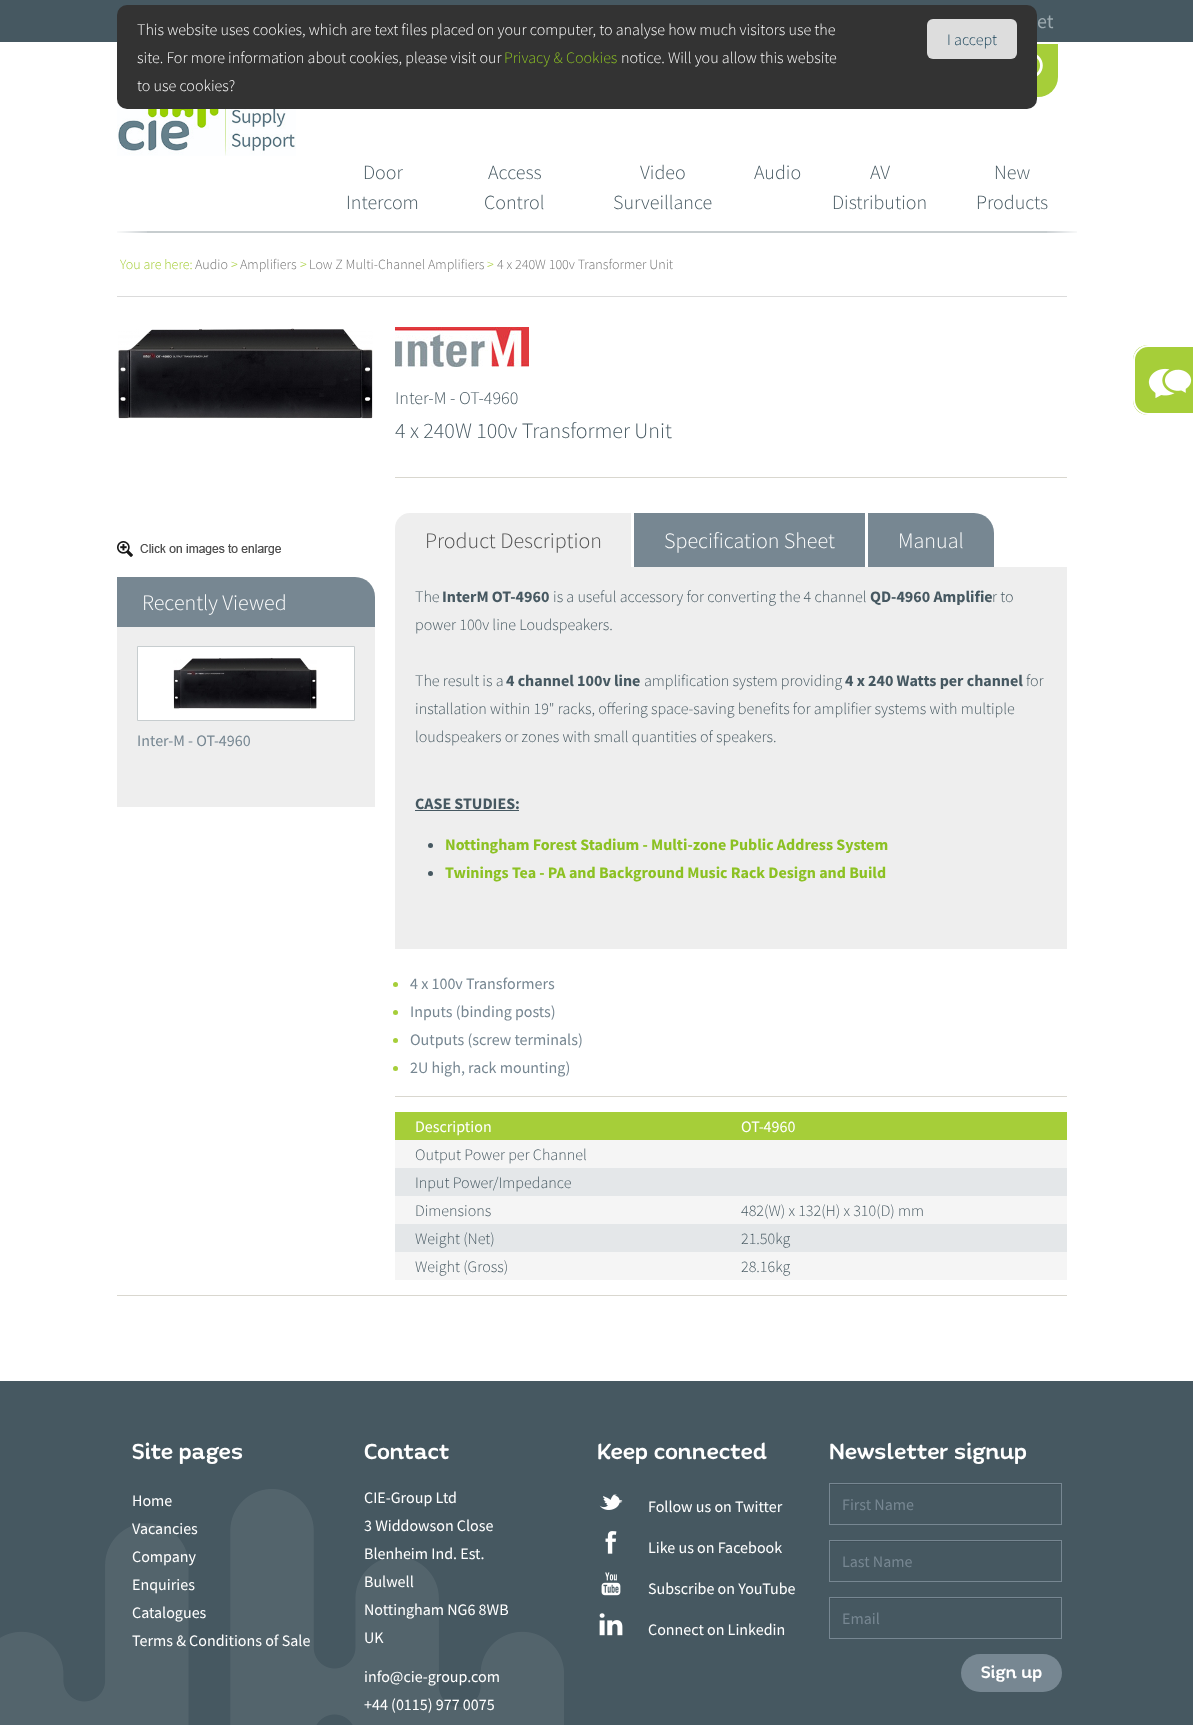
(async () => {
  const canvas = document.querySelector("canvas");
  canvas.width = 1193;
  canvas.height = 1725;
  const ctx = canvas.getContext("2d");
  ctx.miterLimit = 4;
  ctx.fontKerning = "normal";
  async function loadImage(src) {
    const img = new Image();
    img.src = src;
    await img.decode();
    return img;
  }
  let path;

  ctx.fillStyle = "#ffffff";
  ctx.fillRect(0, 0, 1193, 1725);
  ctx.fillStyle = "#465861";
  ctx.fillRect(0, 0, 1193, 42);
  ctx.drawImage(await loadImage("img/1.png"), 117, 99, 179, 57);
  ctx.fillStyle = "#a6ce39";
  ctx.beginPath();
  ctx.roundRect(994, 44, 64, 53, [0, 0, 20, 0]);
  ctx.fill();
  ctx.fillStyle = "#333333";
  ctx.beginPath();
  ctx.roundRect(117, 5, 920, 104, 10);
  ctx.fill();
  ctx.fillStyle = "#dddddd";
  ctx.beginPath();
  ctx.roundRect(927, 19, 90, 40, 6);
  ctx.fill();
  ctx.drawImage(await loadImage("img/2.png"), 117, 231, 960, 2);
  ctx.fillStyle = "#dbdbdb";
  ctx.fillRect(117, 296, 950, 1);
  ctx.drawImage(await loadImage("img/3.png"), 118, 328, 255, 91);
  ctx.drawImage(await loadImage("img/4.png"), 117, 541, 164, 16);
  ctx.fillStyle = "#eeeeee";
  ctx.beginPath();
  ctx.roundRect(117, 577, 258, 230, [0, 20, 0, 0]);
  ctx.fill();
  ctx.fillStyle = "#778792";
  ctx.beginPath();
  ctx.roundRect(117, 577, 258, 50, [0, 20, 0, 0]);
  ctx.fill();
  ctx.fillStyle = "#ffffff";
  ctx.beginPath();
  ctx.rect(137.5, 646.5, 217, 74);
  ctx.fill();
  ctx.strokeStyle = "#c7cdcf";
  ctx.stroke();
  ctx.drawImage(await loadImage("img/5.png"), 173, 657, 144, 52);
  ctx.drawImage(await loadImage("img/6.png"), 395, 327, 134, 40);
  ctx.fillStyle = "#d9d7cf";
  ctx.fillRect(395, 477, 672, 1);
  ctx.fillStyle = "#eeeeee";
  ctx.beginPath();
  ctx.roundRect(395, 513, 236, 54, [15, 0, 0, 0]);
  ctx.fill();
  ctx.fillStyle = "#778792";
  ctx.fillRect(634, 513, 231, 54);
  ctx.beginPath();
  ctx.roundRect(868, 513, 126, 54, [0, 20, 0, 0]);
  ctx.fill();
  ctx.fillStyle = "#eeeeee";
  ctx.fillRect(395, 567, 672, 382);
  ctx.fillStyle = "#465861";
  ctx.fillRect(415, 810, 104, 1);
  ctx.beginPath();
  ctx.arc(430.5, 845.5, 2.5, 0, Math.PI * 2);
  ctx.fill();
  ctx.beginPath();
  ctx.arc(430.5, 873.5, 2.5, 0, Math.PI * 2);
  ctx.fill();
  ctx.fillStyle = "#a6ce39";
  ctx.beginPath();
  ctx.arc(395.5, 984.5, 2.5, 0, Math.PI * 2);
  ctx.fill();
  ctx.beginPath();
  ctx.arc(395.5, 1012.5, 2.5, 0, Math.PI * 2);
  ctx.fill();
  ctx.beginPath();
  ctx.arc(395.5, 1040.5, 2.5, 0, Math.PI * 2);
  ctx.fill();
  ctx.beginPath();
  ctx.arc(395.5, 1068.5, 2.5, 0, Math.PI * 2);
  ctx.fill();
  for (const [x, y, w, h, color] of [
    [395, 1096, 672, 1, "#d9d7cf"],
    [395, 1112, 672, 28, "#a6ce39"],
    [395, 1140, 672, 28, "#f5f5f5"],
    [395, 1168, 672, 28, "#e4e7e9"],
    [395, 1196, 672, 28, "#f5f5f5"],
    [395, 1224, 672, 28, "#e4e7e9"],
    [395, 1252, 672, 28, "#f5f5f5"],
    [117, 1295, 950, 1, "#d9d7cf"],
  ]) {
    ctx.fillStyle = color;
    ctx.fillRect(x, y, w, h);
  }
  ctx.drawImage(await loadImage("img/7.png"), 1037, 54, 6, 23);
  ctx.fillStyle = "#a6ce39";
  path = new Path2D("M1148 345H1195V415H1148C1139.5 415 1133 408.5 1133 400V360C1133 351.5 1139.5 345 1148 345Z");
  ctx.fill(path);
  ctx.fillStyle = "#ffffff";
  path = new Path2D("M1148 345H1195V415H1148C1140 415 1133 408 1133 400V360C1133 352 1140 345 1148 345ZM1148 347H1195V413H1148C1141 413 1135 407 1135 400V360C1135 353 1141 347 1148 347Z");
  ctx.fill(path, "evenodd");
  ctx.drawImage(await loadImage("img/8.png"), 1148, 368, 44, 30);
  ctx.fillStyle = "#465861";
  ctx.fillRect(0, 1381, 1193, 344);
  ctx.drawImage(await loadImage("img/9.png"), 599, 1494, 24, 16);
  ctx.drawImage(await loadImage("img/10.png"), 605, 1531, 12, 23);
  ctx.drawImage(await loadImage("img/11.png"), 601, 1572, 20, 24);
  ctx.drawImage(await loadImage("img/12.png"), 599, 1613, 24, 23);
  ctx.fillStyle = "#41515a";
  ctx.fillRect(830, 1484, 231, 1);
  ctx.strokeStyle = "#778792";
  ctx.strokeRect(829.5, 1483.5, 232, 41);
  ctx.fillRect(830, 1541, 231, 1);
  ctx.strokeRect(829.5, 1540.5, 232, 41);
  ctx.fillRect(830, 1598, 231, 1);
  ctx.strokeRect(829.5, 1597.5, 232, 41);
  ctx.fillStyle = "#778792";
  ctx.beginPath();
  ctx.roundRect(961, 1654, 101, 38, 19);
  ctx.fill();
  ctx.drawImage(await loadImage("img/13.png"), 0, 1489, 564, 236);
  ctx.font = "20px Source Sans Pro";
  ctx.fillStyle = "#9daab0";
  ctx.fillText("et", 1037, 28);
  ctx.font = "300 16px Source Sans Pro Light";
  ctx.fillStyle = "#ffffff";
  ctx.fillText("This website uses cookies, which are text files placed on your computer, to analyse how much visitors use the", 137, 35);
  ctx.fillText("site. For more information about cookies, please visit our", 137, 63);
  ctx.fillStyle = "#8cc123";
  ctx.fillText("Privacy & Cookies", 504, 63);
  ctx.fillStyle = "#ffffff";
  ctx.fillText("notice. Will you allow this website", 621, 63);
  ctx.fillText("to use cookies?", 137, 91);
  ctx.fillStyle = "#123d54";
  ctx.fillText("I accept", 947, 45);
  ctx.font = "300 20px Source Sans Pro Light";
  ctx.fillStyle = "#465861";
  for (const [text, x, y] of [
    ["Door", 363, 179],
    ["Intercom", 346, 209],
    ["Access", 488, 179],
    ["Control", 484, 209],
    ["Video", 640, 179],
    ["Surveillance", 613, 209],
    ["Audio", 754, 179],
    ["AV", 870, 179],
    ["Distribution", 832, 209],
    ["New", 994, 179],
    ["Products", 976, 209],
  ]) {
    ctx.fillText(text, x, y);
  }
  ctx.font = "300 14px Source Sans Pro Light";
  ctx.fillStyle = "#a6ce39";
  ctx.fillText("You are here:", 120, 269);
  ctx.fillStyle = "#737373";
  ctx.fillText("Audio", 195, 269);
  ctx.fillStyle = "#a6ce39";
  ctx.fillText(">", 231, 269);
  ctx.fillStyle = "#737373";
  ctx.fillText("Amplifiers", 240, 269);
  ctx.fillStyle = "#a6ce39";
  ctx.fillText(">", 300, 269);
  ctx.fillStyle = "#737373";
  ctx.fillText("Low Z Multi-Channel Amplifiers", 309, 269);
  ctx.fillStyle = "#a6ce39";
  ctx.fillText(">", 487, 269);
  ctx.fillStyle = "#737373";
  ctx.fillText("4 x 240W 100v Transformer Unit", 497, 269);
  ctx.font = "300 22px Source Sans Pro Light";
  ctx.fillStyle = "#ffffff";
  ctx.fillText("Recently Viewed", 142, 610);
  ctx.font = "16px Source Sans Pro";
  ctx.fillStyle = "#778792";
  ctx.fillText("Inter-M - OT-4960", 137, 746);
  ctx.font = "300 18px Source Sans Pro Light";
  ctx.fillStyle = "#465861";
  ctx.fillText("Inter-M - OT-4960", 395, 404);
  ctx.font = "300 22px Source Sans Pro Light";
  ctx.fillText("4 x 240W 100v Transformer Unit", 395, 438);
  ctx.fillStyle = "#505050";
  ctx.fillText("Product Description", 425, 548);
  ctx.fillStyle = "#ffffff";
  ctx.fillText("Specification Sheet", 664, 548);
  ctx.fillText("Manual", 898, 548);
  ctx.font = "300 16px Source Sans Pro Light";
  ctx.fillStyle = "#465861";
  ctx.fillText("The", 415, 602);
  ctx.font = "bold 16px Source Sans Pro";
  ctx.fillText("InterM OT-4960", 442, 602);
  ctx.font = "300 16px Source Sans Pro Light";
  ctx.fillText("is a useful accessory for converting the 4 channel", 553, 602);
  ctx.font = "bold 16px Source Sans Pro";
  ctx.fillText("QD-4960 Amplifie", 870, 602);
  ctx.font = "300 16px Source Sans Pro Light";
  for (const [text, x, y] of [
    ["r to", 992, 602],
    ["power 100v line Loudspeakers.", 415, 630],
    ["The result is a", 415, 686],
  ]) {
    ctx.fillText(text, x, y);
  }
  ctx.font = "bold 16px Source Sans Pro";
  ctx.fillText("4 channel 100v line", 506, 686);
  ctx.font = "300 16px Source Sans Pro Light";
  ctx.fillText("amplification system providing", 644, 686);
  ctx.font = "bold 16px Source Sans Pro";
  ctx.fillText("4 x 240 Watts per channel", 845, 686);
  ctx.font = "300 16px Source Sans Pro Light";
  for (const [text, x, y] of [
    ["for", 1026, 686],
    ["installation within 19\" racks, offering space-saving benefits for amplifier systems with multiple", 415, 714],
    ["loudspeakers or zones with small quantities of speakers.", 415, 742],
  ]) {
    ctx.fillText(text, x, y);
  }
  ctx.font = "bold 16px Source Sans Pro";
  ctx.fillText("CASE STUDIES:", 415, 809);
  ctx.fillStyle = "#8cc123";
  ctx.fillText("Nottingham Forest Stadium - Multi-zone Public Address System", 445, 850);
  ctx.fillText("Twinings Tea - PA and Background Music Rack Design and Build", 445, 878);
  ctx.font = "16px Source Sans Pro";
  ctx.fillStyle = "#778792";
  for (const [text, x, y] of [
    ["4 x 100v Transformers", 410, 989],
    ["Inputs (binding posts)", 410, 1017],
    ["Outputs (screw terminals)", 410, 1045],
    ["2U high, rack mounting)", 410, 1073],
  ]) {
    ctx.fillText(text, x, y);
  }
  ctx.fillStyle = "#ffffff";
  ctx.fillText("Description", 415, 1132);
  ctx.fillText("OT-4960", 741, 1132);
  ctx.font = "300 16px Source Sans Pro Light";
  ctx.fillStyle = "#465861";
  for (const [text, x, y] of [
    ["Output Power per Channel", 415, 1160],
    ["Input Power/Impedance", 415, 1188],
    ["Dimensions", 415, 1216],
    ["482(W) x 132(H) x 310(D) mm", 741, 1216],
    ["Weight (Net)", 415, 1244],
    ["21.50kg", 741, 1244],
    ["Weight (Gross)", 415, 1272],
    ["28.16kg", 741, 1272],
  ]) {
    ctx.fillText(text, x, y);
  }
  ctx.font = "500 24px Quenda";
  ctx.fillStyle = "#ffffff";
  ctx.fillText("Site pages", 132, 1459);
  ctx.font = "16px Source Sans Pro";
  for (const [text, x, y] of [
    ["Home", 132, 1506],
    ["Vacancies", 132, 1534],
    ["Company", 132, 1562],
    ["Enquiries", 132, 1590],
    ["Catalogues", 132, 1618],
    ["Terms & Conditions of Sale", 132, 1646],
  ]) {
    ctx.fillText(text, x, y);
  }
  ctx.font = "500 24px Quenda";
  ctx.fillText("Contact", 364, 1459);
  ctx.font = "16px Source Sans Pro";
  for (const [text, x, y] of [
    ["CIE-Group Ltd", 364, 1503],
    ["3 Widdowson Close", 364, 1531],
    ["Blenheim Ind. Est.", 364, 1559],
    ["Bulwell", 364, 1587],
    ["Nottingham NG6 8WB", 364, 1615],
    ["UK", 364, 1643],
    ["info@cie-group.com", 364, 1682],
    ["+44 (0115) 977 0075", 364, 1710],
  ]) {
    ctx.fillText(text, x, y);
  }
  ctx.font = "500 24px Quenda";
  ctx.fillText("Keep connected", 597, 1459);
  ctx.font = "16px Source Sans Pro";
  for (const [text, x, y] of [
    ["Follow us on Twitter", 648, 1512],
    ["Like us on Facebook", 648, 1553],
    ["Subscribe on YouTube", 648, 1594],
    ["Connect on Linkedin", 648, 1635],
  ]) {
    ctx.fillText(text, x, y);
  }
  ctx.font = "500 24px Quenda";
  ctx.fillText("Newsletter signup", 829, 1459);
  ctx.font = "16px Source Sans Pro";
  ctx.fillStyle = "#778792";
  for (const [text, x, y] of [
    ["First Name", 842, 1510],
    ["Last Name", 842, 1567],
    ["Email", 842, 1624],
  ]) {
    ctx.fillText(text, x, y);
  }
  ctx.font = "500 18.5px Quenda";
  ctx.fillStyle = "#ffffff";
  ctx.fillText("Sign up", 981, 1678);
})();
